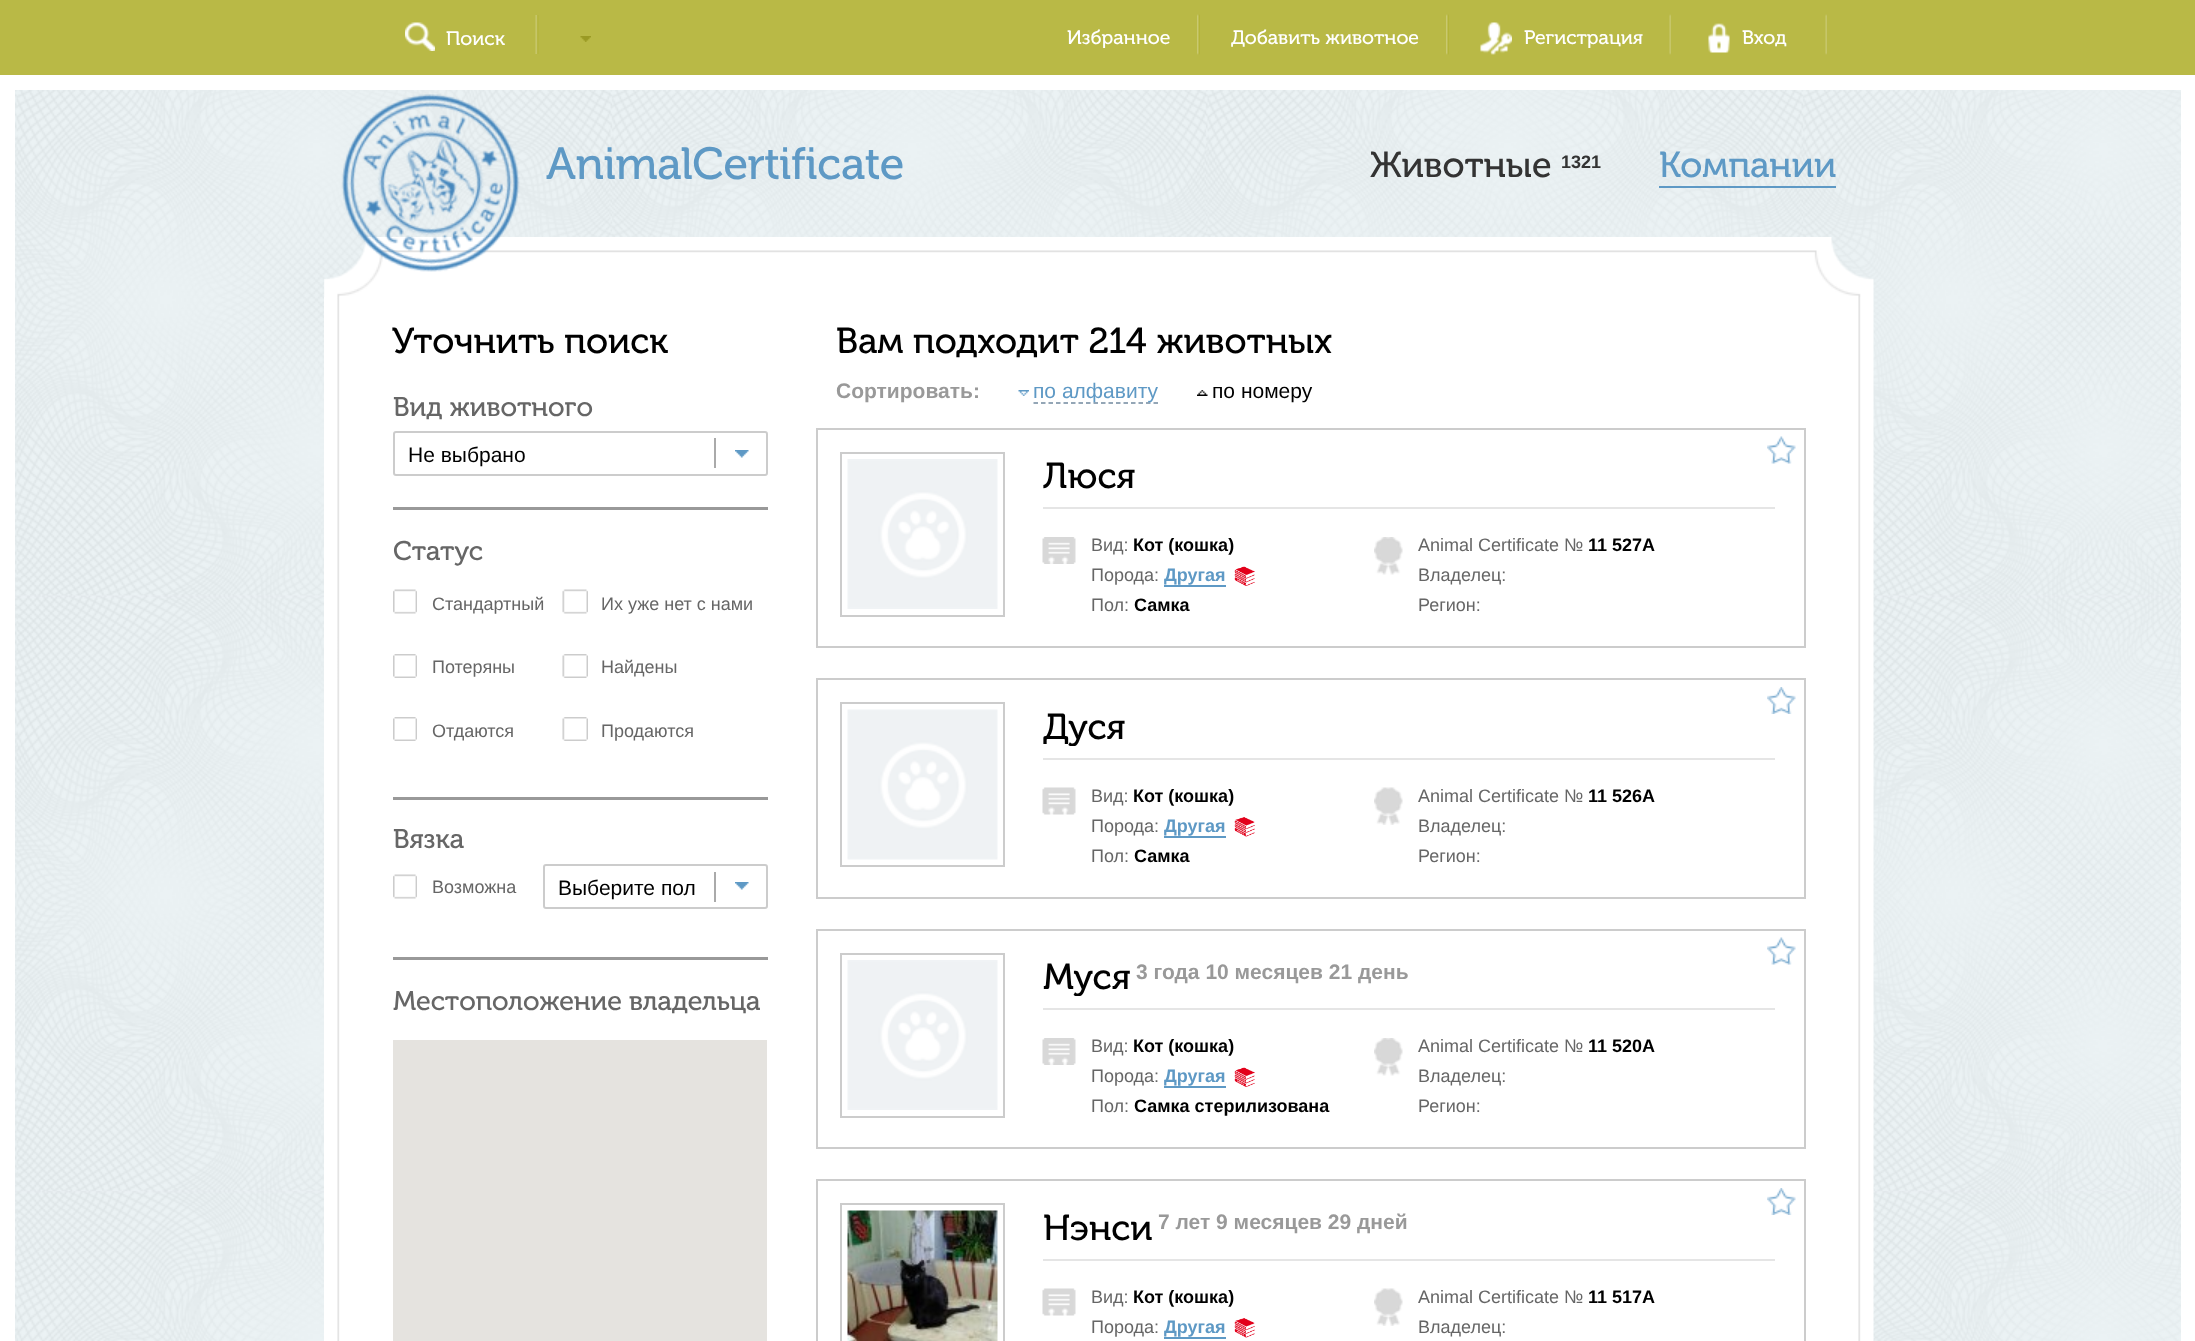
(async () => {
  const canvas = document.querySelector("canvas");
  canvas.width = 2195;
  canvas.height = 1341;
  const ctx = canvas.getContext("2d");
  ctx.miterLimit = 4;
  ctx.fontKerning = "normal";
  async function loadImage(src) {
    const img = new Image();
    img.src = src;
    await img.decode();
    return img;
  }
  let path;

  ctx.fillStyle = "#eaf1f4";
  ctx.fillRect(0, 0, 2195, 1341);
  ctx.drawImage(await loadImage("img/1.png"), 15, 90, 2166, 1251);
  for (const [x, y, w, h, color] of [
    [2181, 90, 14, 1251, "#ffffff"],
    [0, 90, 15, 1251, "#ffffff"],
    [0, 0, 2195, 75, "#b9b946"],
    [0, 75, 2195, 15, "#ffffff"],
  ]) {
    ctx.fillStyle = color;
    ctx.fillRect(x, y, w, h);
  }
  ctx.drawImage(await loadImage("img/2.png"), 405, 22, 30, 29);
  ctx.drawImage(await loadImage("img/3.png"), 535, 15, 4, 39);
  ctx.drawImage(await loadImage("img/4.png"), 580, 36, 11, 6);
  ctx.drawImage(await loadImage("img/5.png"), 1197, 14, 3, 41);
  ctx.drawImage(await loadImage("img/5.png"), 1446, 14, 3, 41);
  ctx.drawImage(await loadImage("img/6.png"), 1480, 22, 32, 33);
  ctx.drawImage(await loadImage("img/7.png"), 1669, 14, 2, 41);
  ctx.drawImage(await loadImage("img/8.png"), 1708, 23, 22, 30);
  ctx.drawImage(await loadImage("img/7.png"), 1825, 14, 2, 41);
  ctx.drawImage(await loadImage("img/11.png"), 324, 237, 1550, 60);
  ctx.drawImage(await loadImage("img/9.png"), 341, 94, 179, 178);
  ctx.fillStyle = "#5e99c5";
  ctx.fillRect(1659, 186, 177, 2);
  ctx.drawImage(await loadImage("img/10.png"), 324, 297, 1550, 1044);
  ctx.beginPath();
  ctx.roundRect(394, 432, 373, 43, 2);
  ctx.strokeStyle = "#cccccc";
  ctx.lineWidth = 2;
  ctx.stroke();
  ctx.fillStyle = "#aaaaaa";
  ctx.fillRect(714, 438, 2, 30);
  ctx.drawImage(await loadImage("img/12.png"), 735, 450, 14, 8);
  ctx.fillStyle = "#999999";
  ctx.fillRect(393, 507, 375, 3);
  ctx.drawImage(await loadImage("img/13.png"), 393, 589, 24, 25);
  ctx.drawImage(await loadImage("img/14.png"), 393, 654, 24, 24);
  ctx.drawImage(await loadImage("img/14.png"), 393, 717, 24, 24);
  ctx.drawImage(await loadImage("img/15.png"), 562, 589, 26, 25);
  ctx.drawImage(await loadImage("img/16.png"), 562, 654, 26, 24);
  ctx.drawImage(await loadImage("img/16.png"), 562, 717, 26, 24);
  ctx.fillRect(393, 797, 375, 3);
  ctx.drawImage(await loadImage("img/13.png"), 393, 874, 24, 25);
  ctx.beginPath();
  ctx.roundRect(544, 865, 223, 43, 2);
  ctx.stroke();
  ctx.fillStyle = "#aaaaaa";
  ctx.fillRect(714, 872, 2, 30);
  ctx.drawImage(await loadImage("img/12.png"), 735, 882, 14, 8);
  ctx.fillStyle = "#999999";
  ctx.fillRect(393, 957, 375, 3);
  ctx.fillStyle = "#e5e3df";
  ctx.fillRect(393, 1040, 374, 301);
  ctx.drawImage(await loadImage("img/17.png"), 1018, 390, 11, 6);
  path = new Path2D("M1033.5 403H1158");
  ctx.strokeStyle = "#71899f";
  ctx.lineWidth = 1.5;
  ctx.setLineDash([4.5, 3]);
  ctx.stroke(path);
  ctx.drawImage(await loadImage("img/18.png"), 1197, 390, 11, 6);
  ctx.strokeStyle = "#cccccc";
  ctx.lineWidth = 2;
  ctx.setLineDash([]);
  ctx.strokeRect(817, 429, 988, 218);
  ctx.strokeRect(841, 453, 163, 163);
  ctx.drawImage(await loadImage("img/19.png"), 847, 459, 151, 150);
  ctx.fillStyle = "#e5e5e5";
  ctx.fillRect(1043, 507, 732, 2);
  ctx.drawImage(await loadImage("img/20.png"), 1042, 537, 34, 27);
  ctx.fillStyle = "#5e99c5";
  ctx.fillRect(1164, 585, 62, 2);
  ctx.drawImage(await loadImage("img/21.png"), 1234, 566, 21, 20);
  ctx.drawImage(await loadImage("img/22.png"), 1374, 537, 29, 38);
  ctx.drawImage(await loadImage("img/23.png"), 1767, 436, 29, 28);
  ctx.strokeRect(817, 679, 988, 219);
  ctx.strokeRect(841, 703, 163, 163);
  ctx.drawImage(await loadImage("img/24.png"), 847, 709, 151, 151);
  ctx.fillStyle = "#e5e5e5";
  ctx.fillRect(1043, 758, 732, 2);
  ctx.drawImage(await loadImage("img/25.png"), 1042, 787, 34, 28);
  ctx.fillStyle = "#5e99c5";
  ctx.fillRect(1164, 836, 62, 2);
  ctx.drawImage(await loadImage("img/26.png"), 1234, 817, 21, 20);
  ctx.drawImage(await loadImage("img/27.png"), 1374, 787, 29, 38);
  ctx.drawImage(await loadImage("img/28.png"), 1767, 687, 29, 27);
  ctx.strokeRect(817, 930, 988, 218);
  ctx.strokeRect(841, 954, 163, 163);
  ctx.drawImage(await loadImage("img/19.png"), 847, 960, 151, 150);
  ctx.fillStyle = "#e5e5e5";
  ctx.fillRect(1043, 1008, 732, 2);
  ctx.drawImage(await loadImage("img/20.png"), 1042, 1038, 34, 27);
  ctx.fillStyle = "#5e99c5";
  ctx.fillRect(1164, 1086, 62, 2);
  ctx.drawImage(await loadImage("img/21.png"), 1234, 1067, 21, 20);
  ctx.drawImage(await loadImage("img/22.png"), 1374, 1038, 29, 38);
  ctx.drawImage(await loadImage("img/23.png"), 1767, 937, 29, 28);
  ctx.strokeRect(817, 1180, 988, 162);
  ctx.strokeRect(841, 1204, 163, 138);
  ctx.drawImage(await loadImage("img/29.png"), 847, 1210, 151, 131);
  ctx.fillStyle = "#e5e5e5";
  ctx.fillRect(1043, 1259, 732, 2);
  ctx.drawImage(await loadImage("img/25.png"), 1042, 1288, 34, 28);
  ctx.fillStyle = "#5e99c5";
  ctx.fillRect(1164, 1337, 62, 2);
  ctx.drawImage(await loadImage("img/26.png"), 1234, 1318, 21, 20);
  ctx.drawImage(await loadImage("img/27.png"), 1374, 1288, 29, 38);
  ctx.drawImage(await loadImage("img/28.png"), 1767, 1188, 29, 27);
  ctx.font = "19.5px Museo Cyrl";
  ctx.fillStyle = "#ffffff";
  for (const [text, x, y] of [
    ["Поиск", 446, 45],
    ["Избранное", 1067, 44],
    ["Добавить животное", 1231, 44],
    ["Регистрация", 1524, 44],
    ["Вход", 1742, 44],
  ]) {
    ctx.fillText(text, x, y);
  }
  ctx.font = "45px Museo Cyrl";
  ctx.fillStyle = "#5e99c5";
  ctx.fillText("AnimalCertificate", 546, 179);
  ctx.font = "36px Museo Cyrl";
  ctx.fillStyle = "#333333";
  ctx.fillText("Животные", 1370, 177);
  ctx.font = "bold 18px Liberation Sans";
  ctx.fillText("1321", 1561, 168);
  ctx.font = "36px Museo Cyrl";
  ctx.fillStyle = "#5e99c5";
  ctx.fillText("Компании", 1659, 177);
  ctx.fillStyle = "#000000";
  ctx.fillText("Уточнить поиск", 392, 353);
  ctx.font = "27px Museo Cyrl";
  ctx.fillStyle = "#666666";
  ctx.fillText("Вид животного", 393, 416);
  ctx.font = "21px Liberation Sans";
  ctx.fillStyle = "#000000";
  ctx.fillText("Не выбрано", 408, 462);
  ctx.font = "27px Museo Cyrl";
  ctx.fillStyle = "#666666";
  ctx.fillText("Статус", 393, 560);
  ctx.font = "18px Liberation Sans";
  for (const [text, x, y] of [
    ["Стандартный", 432, 610],
    ["Потеряны", 432, 673],
    ["Отдаются", 432, 737],
    ["Их уже нет с нами", 601, 610],
    ["Найдены", 601, 673],
    ["Продаются", 601, 737],
  ]) {
    ctx.fillText(text, x, y);
  }
  ctx.font = "27px Museo Cyrl";
  ctx.fillText("Вязка", 393, 848);
  ctx.font = "18px Liberation Sans";
  ctx.fillText("Возможна", 432, 893);
  ctx.font = "21px Liberation Sans";
  ctx.fillStyle = "#000000";
  ctx.fillText("Выберите пол", 558, 895);
  ctx.font = "27px Museo Cyrl";
  ctx.fillStyle = "#666666";
  ctx.fillText("Местоположение владельца", 393, 1010);
  ctx.font = "36px Museo Cyrl";
  ctx.fillStyle = "#000000";
  ctx.fillText("Вам подходит 214 животных", 836, 353);
  ctx.font = "bold 21px Liberation Sans";
  ctx.fillStyle = "#999999";
  ctx.fillText("Сортировать:", 836, 398);
  ctx.font = "21px Liberation Sans";
  ctx.fillStyle = "#5e99c5";
  ctx.fillText("по алфавиту", 1033, 398);
  ctx.fillStyle = "#000000";
  ctx.fillText("по номеру", 1212, 398);
  ctx.save();
  ctx.beginPath();
  ctx.rect(1043, 459, 93, 36);
  ctx.clip();
  ctx.font = "36px Museo Cyrl";
  ctx.fillText("Люся", 1043, 488);
  ctx.restore();
  ctx.font = "18px Liberation Sans";
  ctx.fillStyle = "#666666";
  ctx.fillText("Вид:", 1091, 551);
  ctx.font = "bold 18px Liberation Sans";
  ctx.fillStyle = "#000000";
  ctx.fillText("Кот (кошка)", 1133, 551);
  ctx.font = "18px Liberation Sans";
  ctx.fillStyle = "#666666";
  ctx.fillText("Порода:", 1091, 581);
  ctx.font = "bold 18px Liberation Sans";
  ctx.fillStyle = "#5e99c5";
  ctx.fillText("Другая", 1164, 581);
  ctx.font = "18px Liberation Sans";
  ctx.fillStyle = "#666666";
  ctx.fillText("Пол:", 1091, 611);
  ctx.font = "bold 18px Liberation Sans";
  ctx.fillStyle = "#000000";
  ctx.fillText("Самка", 1134, 611);
  ctx.font = "18px Liberation Sans";
  ctx.fillStyle = "#666666";
  ctx.fillText("Animal Certificate №", 1418, 551);
  ctx.font = "bold 18px Liberation Sans";
  ctx.fillStyle = "#000000";
  ctx.fillText("11 527A", 1588, 551);
  ctx.font = "18px Liberation Sans";
  ctx.fillStyle = "#666666";
  ctx.fillText("Владелец:", 1418, 581);
  ctx.fillText("Регион:", 1418, 611);
  ctx.save();
  ctx.beginPath();
  ctx.rect(1043, 710, 82, 36);
  ctx.clip();
  ctx.font = "36px Museo Cyrl";
  ctx.fillStyle = "#000000";
  ctx.fillText("Дуся", 1043, 739);
  ctx.restore();
  ctx.fillText("Вид:", 1091, 802);
  ctx.font = "bold 18px Liberation Sans";
  ctx.fillStyle = "#000000";
  ctx.fillText("Кот (кошка)", 1133, 802);
  ctx.font = "18px Liberation Sans";
  ctx.fillStyle = "#666666";
  ctx.fillText("Порода:", 1091, 832);
  ctx.font = "bold 18px Liberation Sans";
  ctx.fillStyle = "#5e99c5";
  ctx.fillText("Другая", 1164, 832);
  ctx.font = "18px Liberation Sans";
  ctx.fillStyle = "#666666";
  ctx.fillText("Пол:", 1091, 862);
  ctx.font = "bold 18px Liberation Sans";
  ctx.fillStyle = "#000000";
  ctx.fillText("Самка", 1134, 862);
  ctx.font = "18px Liberation Sans";
  ctx.fillStyle = "#666666";
  ctx.fillText("Animal Certificate №", 1418, 802);
  ctx.font = "bold 18px Liberation Sans";
  ctx.fillStyle = "#000000";
  ctx.fillText("11 526A", 1588, 802);
  ctx.font = "18px Liberation Sans";
  ctx.fillStyle = "#666666";
  ctx.fillText("Владелец:", 1418, 832);
  ctx.fillText("Регион:", 1418, 862);
  ctx.save();
  ctx.beginPath();
  ctx.rect(1043, 960, 87, 36);
  ctx.clip();
  ctx.font = "36px Museo Cyrl";
  ctx.fillStyle = "#000000";
  ctx.fillText("Муся", 1043, 989);
  ctx.restore();
  ctx.font = "bold 21px Liberation Sans";
  ctx.fillStyle = "#999999";
  ctx.fillText("3 года 10 месяцев 21 день", 1136, 979);
  ctx.font = "18px Liberation Sans";
  ctx.fillStyle = "#666666";
  ctx.fillText("Вид:", 1091, 1052);
  ctx.font = "bold 18px Liberation Sans";
  ctx.fillStyle = "#000000";
  ctx.fillText("Кот (кошка)", 1133, 1052);
  ctx.font = "18px Liberation Sans";
  ctx.fillStyle = "#666666";
  ctx.fillText("Порода:", 1091, 1082);
  ctx.font = "bold 18px Liberation Sans";
  ctx.fillStyle = "#5e99c5";
  ctx.fillText("Другая", 1164, 1082);
  ctx.font = "18px Liberation Sans";
  ctx.fillStyle = "#666666";
  ctx.fillText("Пол:", 1091, 1112);
  ctx.font = "bold 18px Liberation Sans";
  ctx.fillStyle = "#000000";
  ctx.fillText("Самка стерилизована", 1134, 1112);
  ctx.font = "18px Liberation Sans";
  ctx.fillStyle = "#666666";
  ctx.fillText("Animal Certificate №", 1418, 1052);
  ctx.font = "bold 18px Liberation Sans";
  ctx.fillStyle = "#000000";
  ctx.fillText("11 520A", 1588, 1052);
  ctx.font = "18px Liberation Sans";
  ctx.fillStyle = "#666666";
  ctx.fillText("Владелец:", 1418, 1082);
  ctx.fillText("Регион:", 1418, 1112);
  ctx.font = "36px Museo Cyrl";
  ctx.fillStyle = "#000000";
  ctx.fillText("Нэнси", 1043, 1240);
  ctx.font = "bold 21px Liberation Sans";
  ctx.fillStyle = "#999999";
  ctx.fillText("7 лет 9 месяцев 29 дней", 1158, 1229);
  ctx.font = "18px Liberation Sans";
  ctx.fillStyle = "#666666";
  ctx.fillText("Вид:", 1091, 1303);
  ctx.font = "bold 18px Liberation Sans";
  ctx.fillStyle = "#000000";
  ctx.fillText("Кот (кошка)", 1133, 1303);
  ctx.font = "18px Liberation Sans";
  ctx.fillStyle = "#666666";
  ctx.fillText("Порода:", 1091, 1333);
  ctx.font = "bold 18px Liberation Sans";
  ctx.fillStyle = "#5e99c5";
  ctx.fillText("Другая", 1164, 1333);
  ctx.font = "18px Liberation Sans";
  ctx.fillStyle = "#666666";
  ctx.fillText("Animal Certificate №", 1418, 1303);
  ctx.font = "bold 18px Liberation Sans";
  ctx.fillStyle = "#000000";
  ctx.fillText("11 517A", 1588, 1303);
  ctx.font = "18px Liberation Sans";
  ctx.fillStyle = "#666666";
  ctx.fillText("Владелец:", 1418, 1333);
})();
